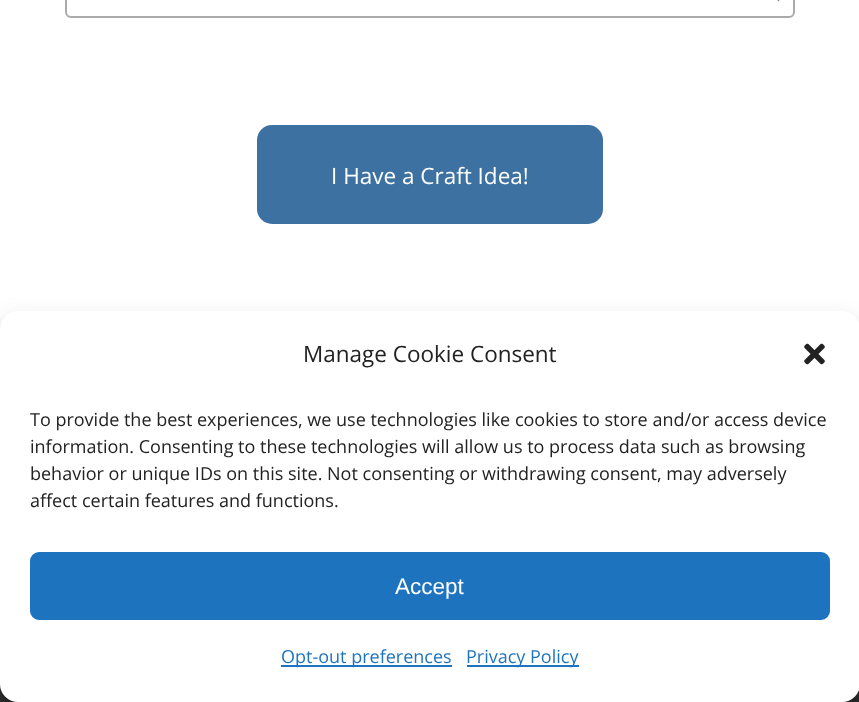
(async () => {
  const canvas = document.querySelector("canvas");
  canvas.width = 859;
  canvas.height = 702;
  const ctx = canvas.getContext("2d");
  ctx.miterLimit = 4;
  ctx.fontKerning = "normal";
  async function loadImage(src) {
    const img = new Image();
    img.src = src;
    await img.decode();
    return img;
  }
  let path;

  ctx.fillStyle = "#ffffff";
  ctx.fillRect(0, 0, 859, 702);
  ctx.beginPath();
  ctx.roundRect(66, -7, 728, 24, 5);
  ctx.strokeStyle = "#aaaaaa";
  ctx.lineWidth = 2;
  ctx.stroke();
  ctx.fillStyle = "#888888";
  path = new Path2D("M772.5-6H784.5L778.5 1.5Z");
  ctx.fill(path);
  ctx.fillStyle = "#3d71a1";
  ctx.beginPath();
  ctx.roundRect(257, 125, 346, 99, 15);
  ctx.fill();
  ctx.fillStyle = "#333333";
  ctx.fillRect(0, 684, 859, 18);
  ctx.fillStyle = "rgba(0, 0, 0, 0.23)";
  ctx.filter = "blur(4.5px)";
  ctx.beginPath();
  ctx.roundRect(0, 320, 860, 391, 18);
  ctx.fill();
  ctx.filter = "none";
  ctx.fillStyle = "rgba(0, 0, 0, 0.19)";
  ctx.filter = "blur(15px)";
  ctx.beginPath();
  ctx.roundRect(0, 326, 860, 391, 18);
  ctx.fill();
  ctx.filter = "none";
  ctx.fillStyle = "#ffffff";
  ctx.beginPath();
  ctx.roundRect(0, 311, 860, 391, 18);
  ctx.fill();
  ctx.drawImage(await loadImage("img/1.png"), 804, 343, 21, 22);
  ctx.fillStyle = "#1e73be";
  ctx.beginPath();
  ctx.roundRect(31, 553, 798, 66, 8);
  ctx.fill();
  ctx.strokeStyle = "#1e73be";
  ctx.stroke();
  ctx.fillRect(281, 665, 171, 2);
  ctx.fillRect(467, 665, 112, 2);
  ctx.font = "22.5px Open Sans";
  ctx.fillStyle = "#ffffff";
  ctx.fillText("I Have a Craft Idea!", 331, 184);
  ctx.fillStyle = "#222222";
  ctx.fillText("Manage Cookie Consent", 303, 362);
  ctx.font = "18px Open Sans";
  for (const [text, x, y] of [
    ["To provide the best experiences, we use technologies like cookies to store and/or access device", 30, 426],
    ["information. Consenting to these technologies will allow us to process data such as browsing", 30, 453],
    ["behavior or unique IDs on this site. Not consenting or withdrawing consent, may adversely", 30, 480],
    ["affect certain features and functions.", 30, 507],
  ]) {
    ctx.fillText(text, x, y);
  }
  ctx.font = "22.5px Liberation Sans";
  ctx.fillStyle = "#ffffff";
  ctx.fillText("Accept", 395, 594);
  ctx.font = "18px Open Sans";
  ctx.fillStyle = "#1e73be";
  ctx.fillText("Opt-out preferences", 281, 663);
  ctx.fillText("Privacy Policy", 466, 663);
})();
